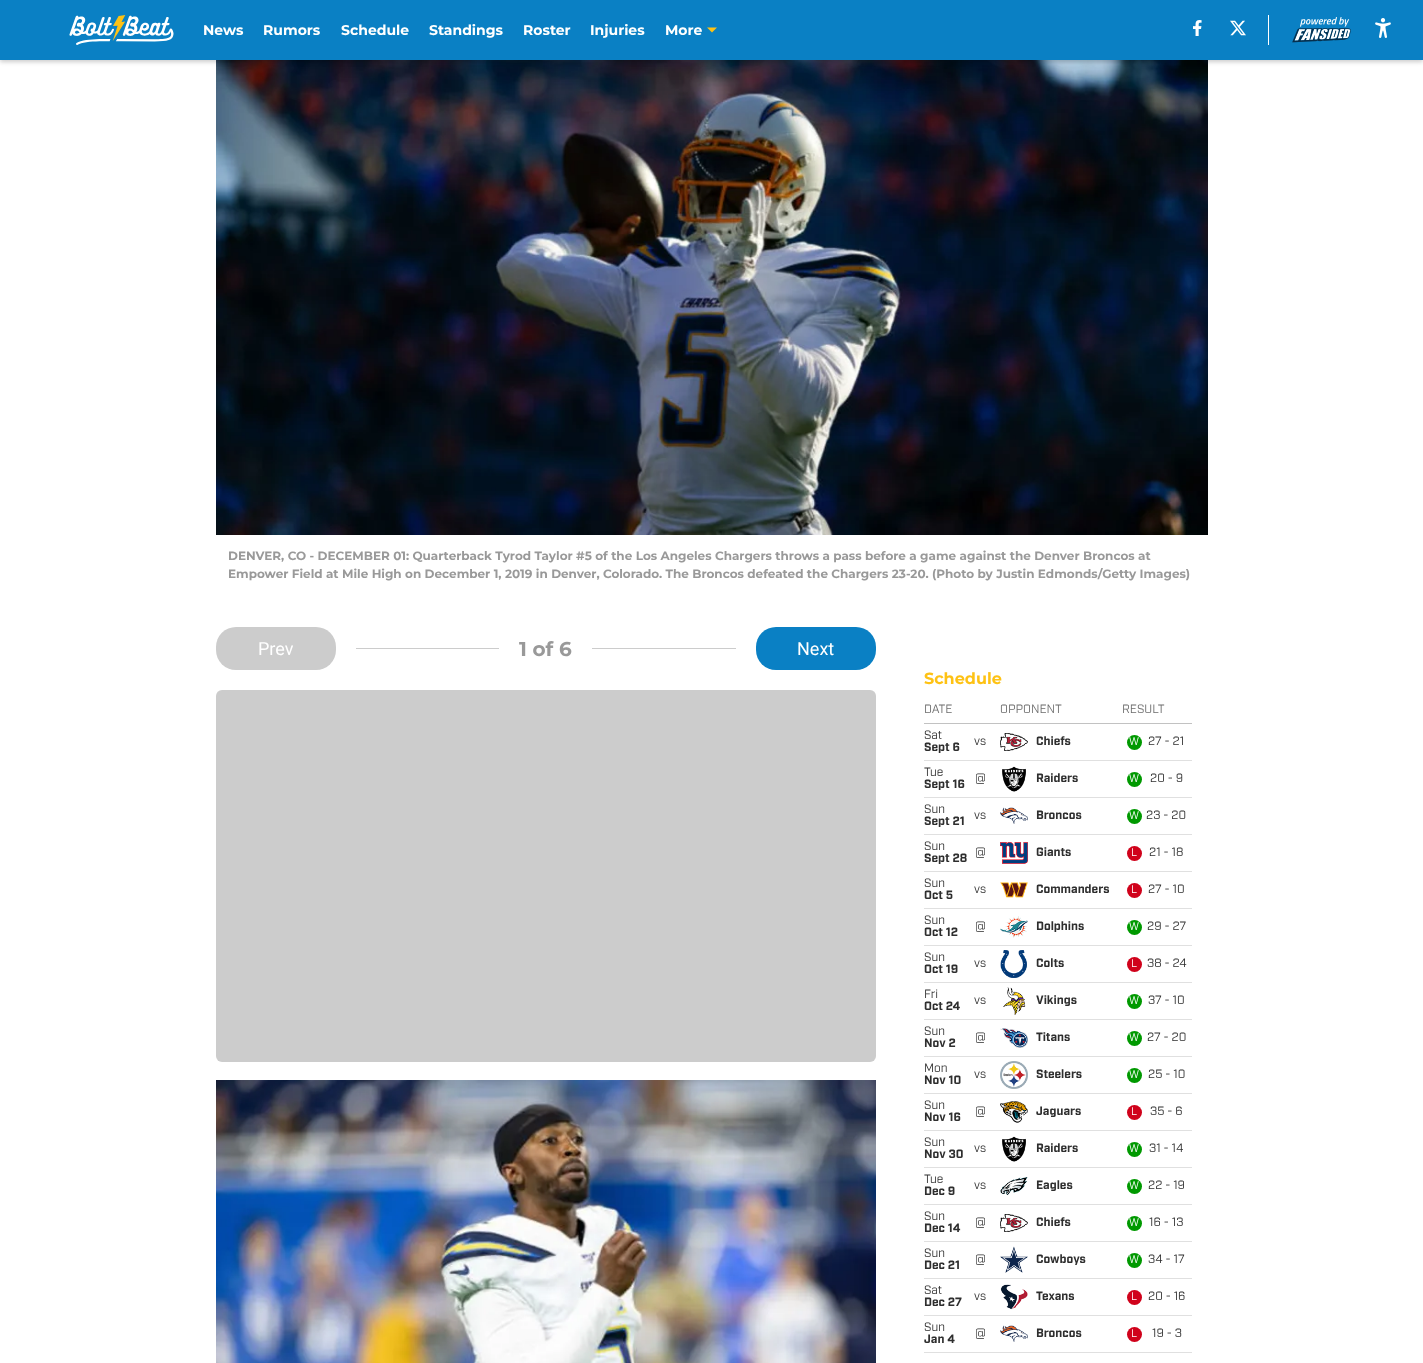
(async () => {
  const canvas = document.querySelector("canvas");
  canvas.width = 1423;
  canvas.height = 1363;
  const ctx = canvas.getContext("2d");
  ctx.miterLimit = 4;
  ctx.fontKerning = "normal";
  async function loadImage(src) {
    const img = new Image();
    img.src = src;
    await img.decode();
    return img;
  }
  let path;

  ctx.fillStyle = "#ffffff";
  ctx.fillRect(0, 0, 1423, 1363);
  ctx.drawImage(await loadImage("img/6.png"), 216, 60, 992, 475);
  ctx.fillStyle = "rgba(0, 0, 0, 0.2)";
  ctx.filter = "blur(2px)";
  ctx.beginPath();
  ctx.rect(0, 2, 1423, 60);
  ctx.fill();
  ctx.filter = "none";
  ctx.fillStyle = "#0a80c4";
  ctx.fillRect(0, 0, 1423, 60);
  ctx.drawImage(await loadImage("img/1.png"), 69, 15, 105, 30);
  ctx.fillStyle = "#fec214";
  path = new Path2D("M707 27.5L712 32.5L717 27.5Z");
  ctx.fill(path, "evenodd");
  ctx.drawImage(await loadImage("img/2.png"), 1193, 20, 9, 16);
  ctx.drawImage(await loadImage("img/3.png"), 1230, 20, 16, 16);
  ctx.fillStyle = "#ffffff";
  ctx.fillRect(1268, 15, 1, 30);
  ctx.drawImage(await loadImage("img/4.png"), 1292, 17, 59, 26);
  ctx.drawImage(await loadImage("img/5.png"), 1375, 18, 16, 20);
  ctx.fillStyle = "#cccccc";
  ctx.beginPath();
  ctx.roundRect(216, 627, 120, 43, 20);
  ctx.fill();
  ctx.fillRect(356, 648, 143, 1);
  ctx.fillRect(592, 648, 144, 1);
  ctx.fillStyle = "#0a80c4";
  ctx.beginPath();
  ctx.roundRect(756, 627, 120, 43, 20);
  ctx.fill();
  ctx.fillStyle = "#cccccc";
  ctx.beginPath();
  ctx.roundRect(216, 690, 660, 372, 6);
  ctx.fill();
  ctx.drawImage(await loadImage("img/7.png"), 216, 1080, 660, 283);
  ctx.fillStyle = "#c2c2c2";
  ctx.fillRect(924, 723, 268, 1);
  ctx.fillStyle = "#e0e0e0";
  ctx.fillRect(924, 760, 268, 1);
  ctx.drawImage(await loadImage("img/8.png"), 1000, 733, 28, 18);
  ctx.fillStyle = "#009900";
  ctx.beginPath();
  ctx.arc(1134.5, 742.5, 7.5, 0, Math.PI * 2);
  ctx.fill();
  ctx.fillStyle = "#e0e0e0";
  ctx.fillRect(924, 797, 268, 1);
  ctx.drawImage(await loadImage("img/9.png"), 1002, 766, 24, 26);
  ctx.fillStyle = "#009900";
  ctx.beginPath();
  ctx.arc(1134.5, 779.5, 7.5, 0, Math.PI * 2);
  ctx.fill();
  ctx.fillStyle = "#e0e0e0";
  ctx.fillRect(924, 834, 268, 1);
  ctx.drawImage(await loadImage("img/10.png"), 1000, 807, 28, 17);
  ctx.fillStyle = "#009900";
  ctx.beginPath();
  ctx.arc(1134.5, 816.5, 7.5, 0, Math.PI * 2);
  ctx.fill();
  ctx.fillStyle = "#e0e0e0";
  ctx.fillRect(924, 871, 268, 1);
  ctx.drawImage(await loadImage("img/11.png"), 1000, 842, 28, 22);
  ctx.fillStyle = "#d0021b";
  ctx.beginPath();
  ctx.arc(1134.5, 853.5, 7.5, 0, Math.PI * 2);
  ctx.fill();
  ctx.fillStyle = "#e0e0e0";
  ctx.fillRect(924, 908, 268, 1);
  ctx.drawImage(await loadImage("img/12.png"), 1000, 882, 28, 16);
  ctx.fillStyle = "#d0021b";
  ctx.beginPath();
  ctx.arc(1134.5, 890.5, 7.5, 0, Math.PI * 2);
  ctx.fill();
  ctx.fillStyle = "#e0e0e0";
  ctx.fillRect(924, 945, 268, 1);
  ctx.drawImage(await loadImage("img/13.png"), 1000, 916, 28, 22);
  ctx.fillStyle = "#009900";
  ctx.beginPath();
  ctx.arc(1134.5, 927.5, 7.5, 0, Math.PI * 2);
  ctx.fill();
  ctx.fillStyle = "#e0e0e0";
  ctx.fillRect(924, 982, 268, 1);
  ctx.drawImage(await loadImage("img/14.png"), 1000, 950, 27, 28);
  ctx.fillStyle = "#d0021b";
  ctx.beginPath();
  ctx.arc(1134.5, 964.5, 7.5, 0, Math.PI * 2);
  ctx.fill();
  ctx.fillStyle = "#e0e0e0";
  ctx.fillRect(924, 1019, 268, 1);
  ctx.drawImage(await loadImage("img/15.png"), 1003, 987, 23, 28);
  ctx.fillStyle = "#009900";
  ctx.beginPath();
  ctx.arc(1134.5, 1001.5, 7.5, 0, Math.PI * 2);
  ctx.fill();
  ctx.fillStyle = "#e0e0e0";
  ctx.fillRect(924, 1056, 268, 1);
  ctx.drawImage(await loadImage("img/16.png"), 1000, 1028, 28, 20);
  ctx.fillStyle = "#009900";
  ctx.beginPath();
  ctx.arc(1134.5, 1038.5, 7.5, 0, Math.PI * 2);
  ctx.fill();
  ctx.fillStyle = "#e0e0e0";
  ctx.fillRect(924, 1093, 268, 1);
  ctx.drawImage(await loadImage("img/17.png"), 1000, 1061, 28, 28);
  ctx.fillStyle = "#009900";
  ctx.beginPath();
  ctx.arc(1134.5, 1075.5, 7.5, 0, Math.PI * 2);
  ctx.fill();
  ctx.fillStyle = "#e0e0e0";
  ctx.fillRect(924, 1130, 268, 1);
  ctx.drawImage(await loadImage("img/18.png"), 1000, 1101, 28, 22);
  ctx.fillStyle = "#d0021b";
  ctx.beginPath();
  ctx.arc(1134.5, 1112.5, 7.5, 0, Math.PI * 2);
  ctx.fill();
  ctx.fillStyle = "#e0e0e0";
  ctx.fillRect(924, 1167, 268, 1);
  ctx.drawImage(await loadImage("img/9.png"), 1002, 1136, 24, 26);
  ctx.fillStyle = "#009900";
  ctx.beginPath();
  ctx.arc(1134.5, 1149.5, 7.5, 0, Math.PI * 2);
  ctx.fill();
  ctx.fillStyle = "#e0e0e0";
  ctx.fillRect(924, 1204, 268, 1);
  ctx.drawImage(await loadImage("img/19.png"), 1000, 1177, 28, 18);
  ctx.fillStyle = "#009900";
  ctx.beginPath();
  ctx.arc(1134.5, 1186.5, 7.5, 0, Math.PI * 2);
  ctx.fill();
  ctx.fillStyle = "#e0e0e0";
  ctx.fillRect(924, 1241, 268, 1);
  ctx.drawImage(await loadImage("img/8.png"), 1000, 1214, 28, 18);
  ctx.fillStyle = "#009900";
  ctx.beginPath();
  ctx.arc(1134.5, 1223.5, 7.5, 0, Math.PI * 2);
  ctx.fill();
  ctx.fillStyle = "#e0e0e0";
  ctx.fillRect(924, 1278, 268, 1);
  ctx.drawImage(await loadImage("img/20.png"), 1000, 1246, 28, 27);
  ctx.fillStyle = "#009900";
  ctx.beginPath();
  ctx.arc(1134.5, 1260.5, 7.5, 0, Math.PI * 2);
  ctx.fill();
  ctx.fillStyle = "#e0e0e0";
  ctx.fillRect(924, 1315, 268, 1);
  ctx.drawImage(await loadImage("img/21.png"), 1000, 1284, 28, 26);
  ctx.fillStyle = "#d0021b";
  ctx.beginPath();
  ctx.arc(1134.5, 1297.5, 7.5, 0, Math.PI * 2);
  ctx.fill();
  ctx.fillStyle = "#e0e0e0";
  ctx.fillRect(924, 1352, 268, 1);
  ctx.drawImage(await loadImage("img/10.png"), 1000, 1325, 28, 17);
  ctx.fillStyle = "#d0021b";
  ctx.beginPath();
  ctx.arc(1134.5, 1334.5, 7.5, 0, Math.PI * 2);
  ctx.fill();
  ctx.font = "100 14px Montserrat";
  ctx.fillStyle = "#ffffff";
  for (const [text, x, y] of [
    ["News", 203, 35],
    ["Rumors", 263, 35],
    ["Schedule", 341, 35],
    ["Standings", 429, 35],
    ["Roster", 523, 35],
    ["Injuries", 590, 35],
    ["More", 665, 35],
  ]) {
    ctx.fillText(text, x, y);
  }
  ctx.font = "100 12px Montserrat";
  ctx.fillStyle = "#999999";
  ctx.fillText("DENVER, CO - DECEMBER 01: Quarterback Tyrod Taylor #5 of the Los Angeles Chargers throws a pass before a game against the Denver Broncos at", 228, 560);
  ctx.fillText("Empower Field at Mile High on December 1, 2019 in Denver, Colorado. The Broncos defeated the Chargers 23-20. (Photo by Justin Edmonds/Getty Images)", 228, 578);
  ctx.font = "18px Roboto";
  ctx.fillStyle = "#ffffff";
  ctx.fillText("Prev", 258, 655);
  ctx.font = "100 20px Montserrat";
  ctx.fillStyle = "#999999";
  ctx.fillText("1 of 6", 519, 656);
  ctx.font = "18px Roboto";
  ctx.fillStyle = "#ffffff";
  ctx.fillText("Next", 797, 655);
  ctx.font = "100 16px Montserrat";
  ctx.fillStyle = "#fec214";
  ctx.fillText("Schedule", 924, 684);
  ctx.font = "12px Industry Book";
  ctx.fillStyle = "#6d6d6d";
  for (const [text, x, y] of [
    ["DATE", 924, 713],
    ["OPPONENT", 1000, 713],
    ["RESULT", 1122, 713],
  ]) {
    ctx.fillText(text, x, y);
  }
  ctx.fillStyle = "#2e2e2e";
  ctx.fillText("Sat", 924, 739);
  ctx.font = "bold 12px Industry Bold";
  ctx.fillText("Sept 6", 924, 751);
  ctx.font = "12px Industry Book";
  ctx.fillText("vs", 974, 745);
  ctx.font = "bold 12px Industry Bold";
  ctx.fillText("Chiefs", 1036, 745);
  ctx.font = "11px Industry Book";
  ctx.fillStyle = "#ffffff";
  ctx.fillText("W", 1129, 745);
  ctx.font = "12px Industry Book";
  ctx.fillStyle = "#2e2e2e";
  ctx.fillText("27 - 21", 1148, 745);
  ctx.fillText("Tue", 924, 776);
  ctx.font = "bold 12px Industry Bold";
  ctx.fillText("Sept 16", 924, 788);
  ctx.font = "12px Industry Book";
  ctx.fillText("@", 975, 782);
  ctx.font = "bold 12px Industry Bold";
  ctx.fillText("Raiders", 1036, 782);
  ctx.font = "11px Industry Book";
  ctx.fillStyle = "#ffffff";
  ctx.fillText("W", 1129, 782);
  ctx.font = "12px Industry Book";
  ctx.fillStyle = "#2e2e2e";
  ctx.fillText("20 - 9", 1150, 782);
  ctx.fillText("Sun", 924, 813);
  ctx.font = "bold 12px Industry Bold";
  ctx.fillText("Sept 21", 924, 825);
  ctx.font = "12px Industry Book";
  ctx.fillText("vs", 974, 819);
  ctx.font = "bold 12px Industry Bold";
  ctx.fillText("Broncos", 1036, 819);
  ctx.font = "11px Industry Book";
  ctx.fillStyle = "#ffffff";
  ctx.fillText("W", 1129, 819);
  ctx.font = "12px Industry Book";
  ctx.fillStyle = "#2e2e2e";
  ctx.fillText("23 - 20", 1146, 819);
  ctx.fillText("Sun", 924, 850);
  ctx.font = "bold 12px Industry Bold";
  ctx.fillText("Sept 28", 924, 862);
  ctx.font = "12px Industry Book";
  ctx.fillText("@", 975, 856);
  ctx.font = "bold 12px Industry Bold";
  ctx.fillText("Giants", 1036, 856);
  ctx.font = "11px Industry Book";
  ctx.fillStyle = "#ffffff";
  ctx.fillText("L", 1131, 856);
  ctx.font = "12px Industry Book";
  ctx.fillStyle = "#2e2e2e";
  ctx.fillText("21 - 18", 1149, 856);
  ctx.fillText("Sun", 924, 887);
  ctx.font = "bold 12px Industry Bold";
  ctx.fillText("Oct 5", 924, 899);
  ctx.font = "12px Industry Book";
  ctx.fillText("vs", 974, 893);
  ctx.font = "bold 12px Industry Bold";
  ctx.fillText("Commanders", 1036, 893);
  ctx.font = "11px Industry Book";
  ctx.fillStyle = "#ffffff";
  ctx.fillText("L", 1131, 893);
  ctx.font = "12px Industry Book";
  ctx.fillStyle = "#2e2e2e";
  ctx.fillText("27 - 10", 1148, 893);
  ctx.fillText("Sun", 924, 924);
  ctx.font = "bold 12px Industry Bold";
  ctx.fillText("Oct 12", 924, 936);
  ctx.font = "12px Industry Book";
  ctx.fillText("@", 975, 930);
  ctx.font = "bold 12px Industry Bold";
  ctx.fillText("Dolphins", 1036, 930);
  ctx.font = "11px Industry Book";
  ctx.fillStyle = "#ffffff";
  ctx.fillText("W", 1129, 930);
  ctx.font = "12px Industry Book";
  ctx.fillStyle = "#2e2e2e";
  ctx.fillText("29 - 27", 1147, 930);
  ctx.fillText("Sun", 924, 961);
  ctx.font = "bold 12px Industry Bold";
  ctx.fillText("Oct 19", 924, 973);
  ctx.font = "12px Industry Book";
  ctx.fillText("vs", 974, 967);
  ctx.font = "bold 12px Industry Bold";
  ctx.fillText("Colts", 1036, 967);
  ctx.font = "11px Industry Book";
  ctx.fillStyle = "#ffffff";
  ctx.fillText("L", 1131, 967);
  ctx.font = "12px Industry Book";
  ctx.fillStyle = "#2e2e2e";
  ctx.fillText("38 - 24", 1147, 967);
  ctx.fillText("Fri", 924, 998);
  ctx.font = "bold 12px Industry Bold";
  ctx.fillText("Oct 24", 924, 1010);
  ctx.font = "12px Industry Book";
  ctx.fillText("vs", 974, 1004);
  ctx.font = "bold 12px Industry Bold";
  ctx.fillText("Vikings", 1036, 1004);
  ctx.font = "11px Industry Book";
  ctx.fillStyle = "#ffffff";
  ctx.fillText("W", 1129, 1004);
  ctx.font = "12px Industry Book";
  ctx.fillStyle = "#2e2e2e";
  ctx.fillText("37 - 10", 1148, 1004);
  ctx.fillText("Sun", 924, 1035);
  ctx.font = "bold 12px Industry Bold";
  ctx.fillText("Nov 2", 924, 1047);
  ctx.font = "12px Industry Book";
  ctx.fillText("@", 975, 1041);
  ctx.font = "bold 12px Industry Bold";
  ctx.fillText("Titans", 1036, 1041);
  ctx.font = "11px Industry Book";
  ctx.fillStyle = "#ffffff";
  ctx.fillText("W", 1129, 1041);
  ctx.font = "12px Industry Book";
  ctx.fillStyle = "#2e2e2e";
  ctx.fillText("27 - 20", 1147, 1041);
  ctx.fillText("Mon", 924, 1072);
  ctx.font = "bold 12px Industry Bold";
  ctx.fillText("Nov 10", 924, 1084);
  ctx.font = "12px Industry Book";
  ctx.fillText("vs", 974, 1078);
  ctx.font = "bold 12px Industry Bold";
  ctx.fillText("Steelers", 1036, 1078);
  ctx.font = "11px Industry Book";
  ctx.fillStyle = "#ffffff";
  ctx.fillText("W", 1129, 1078);
  ctx.font = "12px Industry Book";
  ctx.fillStyle = "#2e2e2e";
  ctx.fillText("25 - 10", 1148, 1078);
  ctx.fillText("Sun", 924, 1109);
  ctx.font = "bold 12px Industry Bold";
  ctx.fillText("Nov 16", 924, 1121);
  ctx.font = "12px Industry Book";
  ctx.fillText("@", 975, 1115);
  ctx.font = "bold 12px Industry Bold";
  ctx.fillText("Jaguars", 1036, 1115);
  ctx.font = "11px Industry Book";
  ctx.fillStyle = "#ffffff";
  ctx.fillText("L", 1131, 1115);
  ctx.font = "12px Industry Book";
  ctx.fillStyle = "#2e2e2e";
  ctx.fillText("35 - 6", 1150, 1115);
  ctx.fillText("Sun", 924, 1146);
  ctx.font = "bold 12px Industry Bold";
  ctx.fillText("Nov 30", 924, 1158);
  ctx.font = "12px Industry Book";
  ctx.fillText("vs", 974, 1152);
  ctx.font = "bold 12px Industry Bold";
  ctx.fillText("Raiders", 1036, 1152);
  ctx.font = "11px Industry Book";
  ctx.fillStyle = "#ffffff";
  ctx.fillText("W", 1129, 1152);
  ctx.font = "12px Industry Book";
  ctx.fillStyle = "#2e2e2e";
  ctx.fillText("31 - 14", 1149, 1152);
  ctx.fillText("Tue", 924, 1183);
  ctx.font = "bold 12px Industry Bold";
  ctx.fillText("Dec 9", 924, 1195);
  ctx.font = "12px Industry Book";
  ctx.fillText("vs", 974, 1189);
  ctx.font = "bold 12px Industry Bold";
  ctx.fillText("Eagles", 1036, 1189);
  ctx.font = "11px Industry Book";
  ctx.fillStyle = "#ffffff";
  ctx.fillText("W", 1129, 1189);
  ctx.font = "12px Industry Book";
  ctx.fillStyle = "#2e2e2e";
  ctx.fillText("22 - 19", 1148, 1189);
  ctx.fillText("Sun", 924, 1220);
  ctx.font = "bold 12px Industry Bold";
  ctx.fillText("Dec 14", 924, 1232);
  ctx.font = "12px Industry Book";
  ctx.fillText("@", 975, 1226);
  ctx.font = "bold 12px Industry Bold";
  ctx.fillText("Chiefs", 1036, 1226);
  ctx.font = "11px Industry Book";
  ctx.fillStyle = "#ffffff";
  ctx.fillText("W", 1129, 1226);
  ctx.font = "12px Industry Book";
  ctx.fillStyle = "#2e2e2e";
  ctx.fillText("16 - 13", 1149, 1226);
  ctx.fillText("Sun", 924, 1257);
  ctx.font = "bold 12px Industry Bold";
  ctx.fillText("Dec 21", 924, 1269);
  ctx.font = "12px Industry Book";
  ctx.fillText("@", 975, 1263);
  ctx.font = "bold 12px Industry Bold";
  ctx.fillText("Cowboys", 1036, 1263);
  ctx.font = "11px Industry Book";
  ctx.fillStyle = "#ffffff";
  ctx.fillText("W", 1129, 1263);
  ctx.font = "12px Industry Book";
  ctx.fillStyle = "#2e2e2e";
  ctx.fillText("34 - 17", 1148, 1263);
  ctx.fillText("Sat", 924, 1294);
  ctx.font = "bold 12px Industry Bold";
  ctx.fillText("Dec 27", 924, 1306);
  ctx.font = "12px Industry Book";
  ctx.fillText("vs", 974, 1300);
  ctx.font = "bold 12px Industry Bold";
  ctx.fillText("Texans", 1036, 1300);
  ctx.font = "11px Industry Book";
  ctx.fillStyle = "#ffffff";
  ctx.fillText("L", 1131, 1300);
  ctx.font = "12px Industry Book";
  ctx.fillStyle = "#2e2e2e";
  ctx.fillText("20 - 16", 1148, 1300);
  ctx.fillText("Sun", 924, 1331);
  ctx.font = "bold 12px Industry Bold";
  ctx.fillText("Jan 4", 924, 1343);
  ctx.font = "12px Industry Book";
  ctx.fillText("@", 975, 1337);
  ctx.font = "bold 12px Industry Bold";
  ctx.fillText("Broncos", 1036, 1337);
  ctx.font = "11px Industry Book";
  ctx.fillStyle = "#ffffff";
  ctx.fillText("L", 1131, 1337);
  ctx.font = "12px Industry Book";
  ctx.fillStyle = "#2e2e2e";
  ctx.fillText("19 - 3", 1152, 1337);
})();
